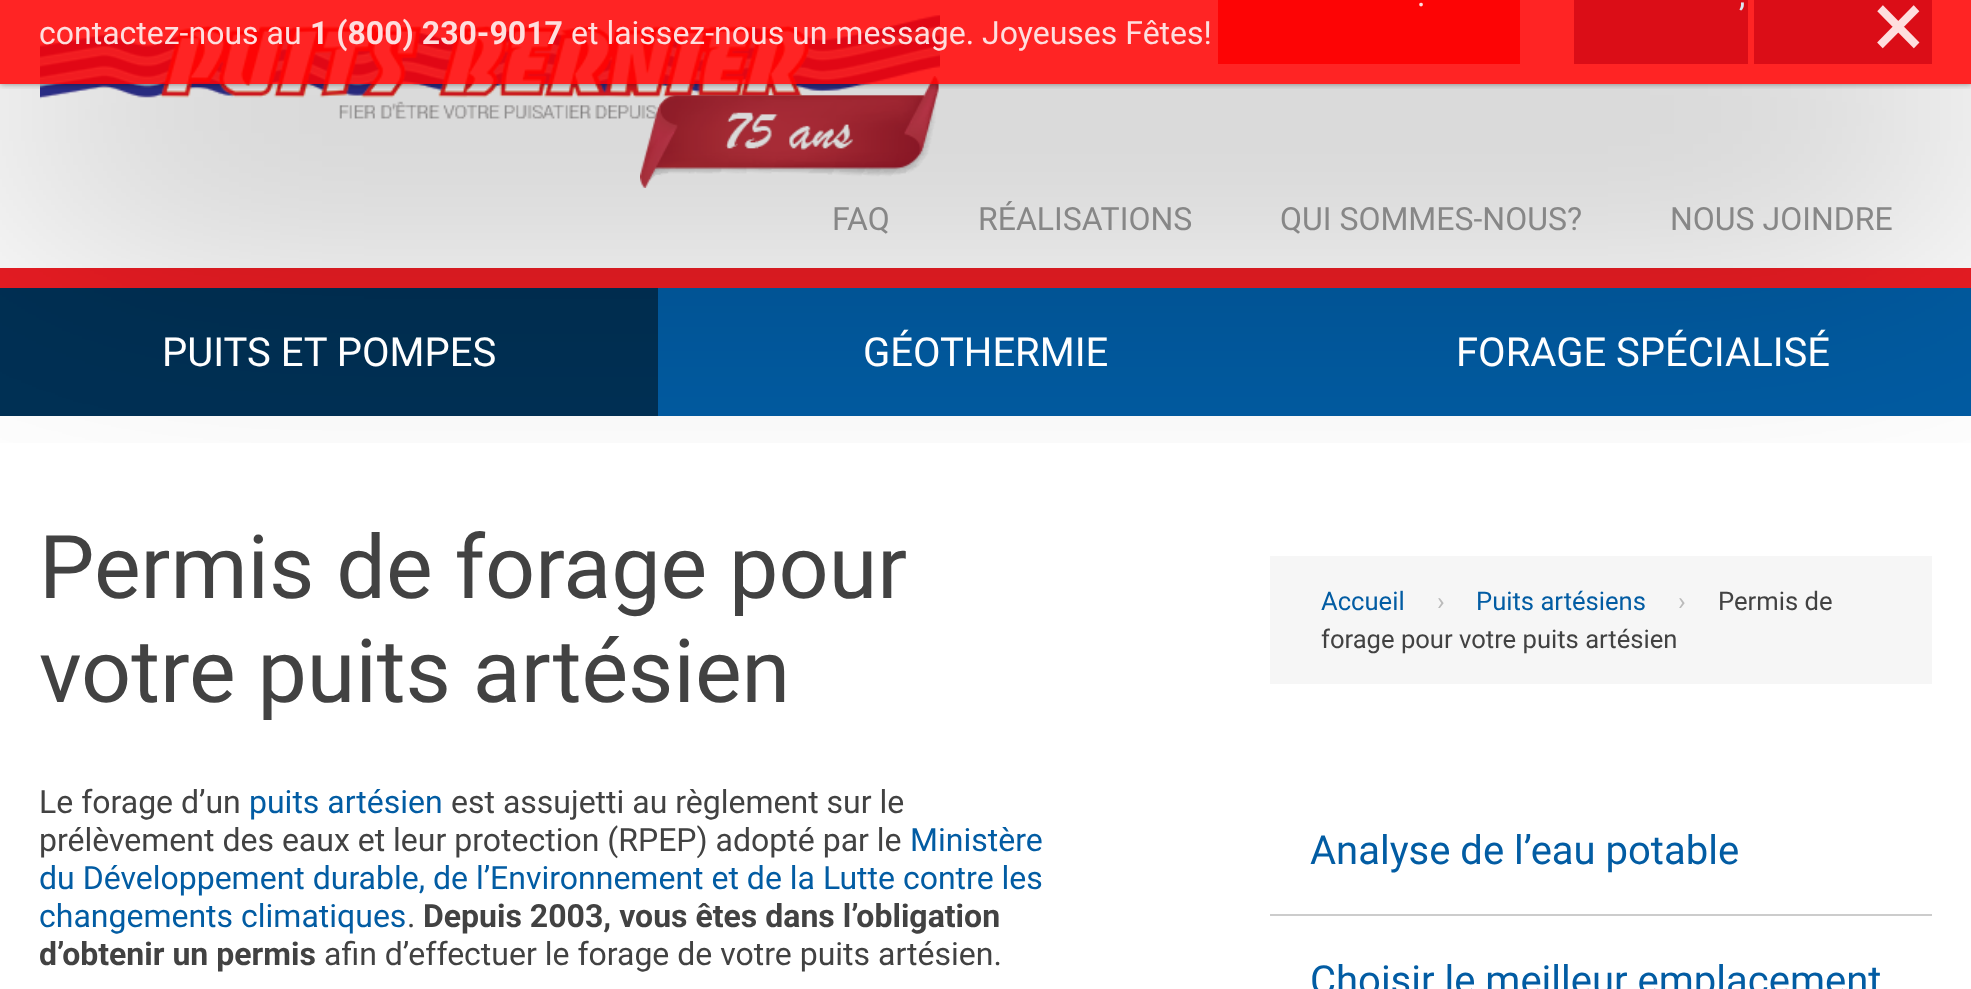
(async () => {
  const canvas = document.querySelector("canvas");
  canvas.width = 1971;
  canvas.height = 989;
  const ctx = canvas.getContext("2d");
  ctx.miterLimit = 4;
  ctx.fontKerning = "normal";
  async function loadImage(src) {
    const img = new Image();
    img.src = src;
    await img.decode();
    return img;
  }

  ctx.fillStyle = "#ffffff";
  ctx.fillRect(0, 0, 1971, 989);
  ctx.fillStyle = "#ed1d24";
  ctx.fillRect(0, 268, 1971, 20);
  ctx.drawImage(await loadImage("img/1.png"), 40, 14, 900, 105);
  ctx.drawImage(await loadImage("img/2.png"), 640, 76, 299, 112);
  for (const [x, y, w, h, color] of [
    [1218, 0, 302, 64, "#ed1d24"],
    [1574, 0, 174, 64, "#025ca3"],
    [1754, 0, 178, 64, "#025ca3"],
    [658, 288, 1313, 128, "#025ca3"],
    [0, 288, 658, 128, "#013156"],
    [1270, 556, 662, 128, "#f6f6f6"],
  ]) {
    ctx.fillStyle = color;
    ctx.fillRect(x, y, w, h);
  }
  ctx.save();
  ctx.beginPath();
  ctx.rect(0, 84, 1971, 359);
  ctx.clip();
  ctx.fillStyle = "rgba(0, 0, 0, 0.43)";
  ctx.filter = "blur(160px)";
  ctx.beginPath();
  ctx.rect(0, 44, 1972, 140);
  ctx.fill();
  ctx.filter = "none";
  ctx.restore();
  ctx.save();
  ctx.beginPath();
  ctx.rect(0, 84, 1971, 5);
  ctx.clip();
  ctx.fillStyle = "rgba(0, 0, 0, 0.43)";
  ctx.filter = "blur(3px)";
  ctx.beginPath();
  ctx.rect(0, -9, 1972, 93);
  ctx.fill();
  ctx.filter = "none";
  ctx.restore();
  ctx.fillStyle = "rgba(255, 0, 0, 0.86)";
  ctx.fillRect(0, 0, 1971, 84);
  ctx.fillStyle = "#cccccc";
  ctx.fillRect(1270, 914, 662, 2);
  ctx.font = "32px Roboto";
  ctx.fillStyle = "#fedede";
  ctx.fillText(".", 1417, 6);
  ctx.fillStyle = "#dce8f2";
  ctx.fillText(",", 1739, 6);
  ctx.fillStyle = "#fedede";
  ctx.fillText("contactez-nous au", 39, 44);
  ctx.font = "bold 32px Roboto";
  ctx.fillText("1 (800) 230-9017", 310, 44);
  ctx.font = "32px Roboto";
  ctx.fillText("et laissez-nous un message. Joyeuses Fêtes!", 571, 44);
  ctx.font = "96px Roboto";
  ctx.fillText("×", 1873, 58);
  ctx.font = "32px Roboto";
  ctx.fillStyle = "#878787";
  for (const [text, x, y] of [
    ["FAQ", 832, 230],
    ["RÉALISATIONS", 978, 230],
    ["QUI SOMMES-NOUS?", 1280, 230],
    ["NOUS JOINDRE", 1670, 230],
  ]) {
    ctx.fillText(text, x, y);
  }
  ctx.font = "40px Roboto";
  ctx.fillStyle = "#ffffff";
  for (const [text, x, y] of [
    ["PUITS ET POMPES", 162, 366],
    ["GÉOTHERMIE", 863, 366],
    ["FORAGE SPÉCIALISÉ", 1456, 366],
  ]) {
    ctx.fillText(text, x, y);
  }
  ctx.font = "88px Roboto";
  ctx.fillStyle = "#424242";
  ctx.fillText("Permis de forage pour", 39, 598);
  ctx.fillText("votre puits artésien", 39, 702);
  ctx.font = "32px Roboto";
  ctx.fillText("Le forage d’un", 39, 813);
  ctx.fillStyle = "#025ca3";
  ctx.fillText("puits artésien", 249, 813);
  ctx.fillStyle = "#424242";
  ctx.fillText("est assujetti au règlement sur le", 451, 813);
  ctx.fillText("prélèvement des eaux et leur protection (RPEP) adopté par le", 39, 851);
  ctx.fillStyle = "#025ca3";
  for (const [text, x, y] of [
    ["Ministère", 910, 851],
    ["du Développement durable, de l’Environnement et de la Lutte contre les", 39, 889],
    ["changements climatiques", 39, 927],
  ]) {
    ctx.fillText(text, x, y);
  }
  ctx.fillStyle = "#424242";
  ctx.fillText(".", 407, 927);
  ctx.font = "bold 32px Roboto";
  ctx.fillText("Depuis 2003, vous êtes dans l’obligation", 423, 927);
  ctx.fillText("d’obtenir un permis", 39, 965);
  ctx.font = "32px Roboto";
  ctx.fillText("afin d’effectuer le forage de votre puits artésien.", 324, 965);
  ctx.font = "25.6px Roboto";
  ctx.fillStyle = "#025ca3";
  ctx.fillText("Accueil", 1321, 610);
  ctx.fillStyle = "#bbbbbb";
  ctx.fillText("›", 1437, 610);
  ctx.fillStyle = "#025ca3";
  ctx.fillText("Puits artésiens", 1476, 610);
  ctx.fillStyle = "#bbbbbb";
  ctx.fillText("›", 1678, 610);
  ctx.fillStyle = "#424242";
  ctx.fillText("Permis de", 1718, 610);
  ctx.fillText("forage pour votre puits artésien", 1321, 648);
  ctx.font = "40px Roboto";
  ctx.fillStyle = "#025ca3";
  ctx.fillText("Analyse de l’eau potable", 1310, 864);
  ctx.fillText("Choisir le meilleur emplacement", 1310, 994);
})();
